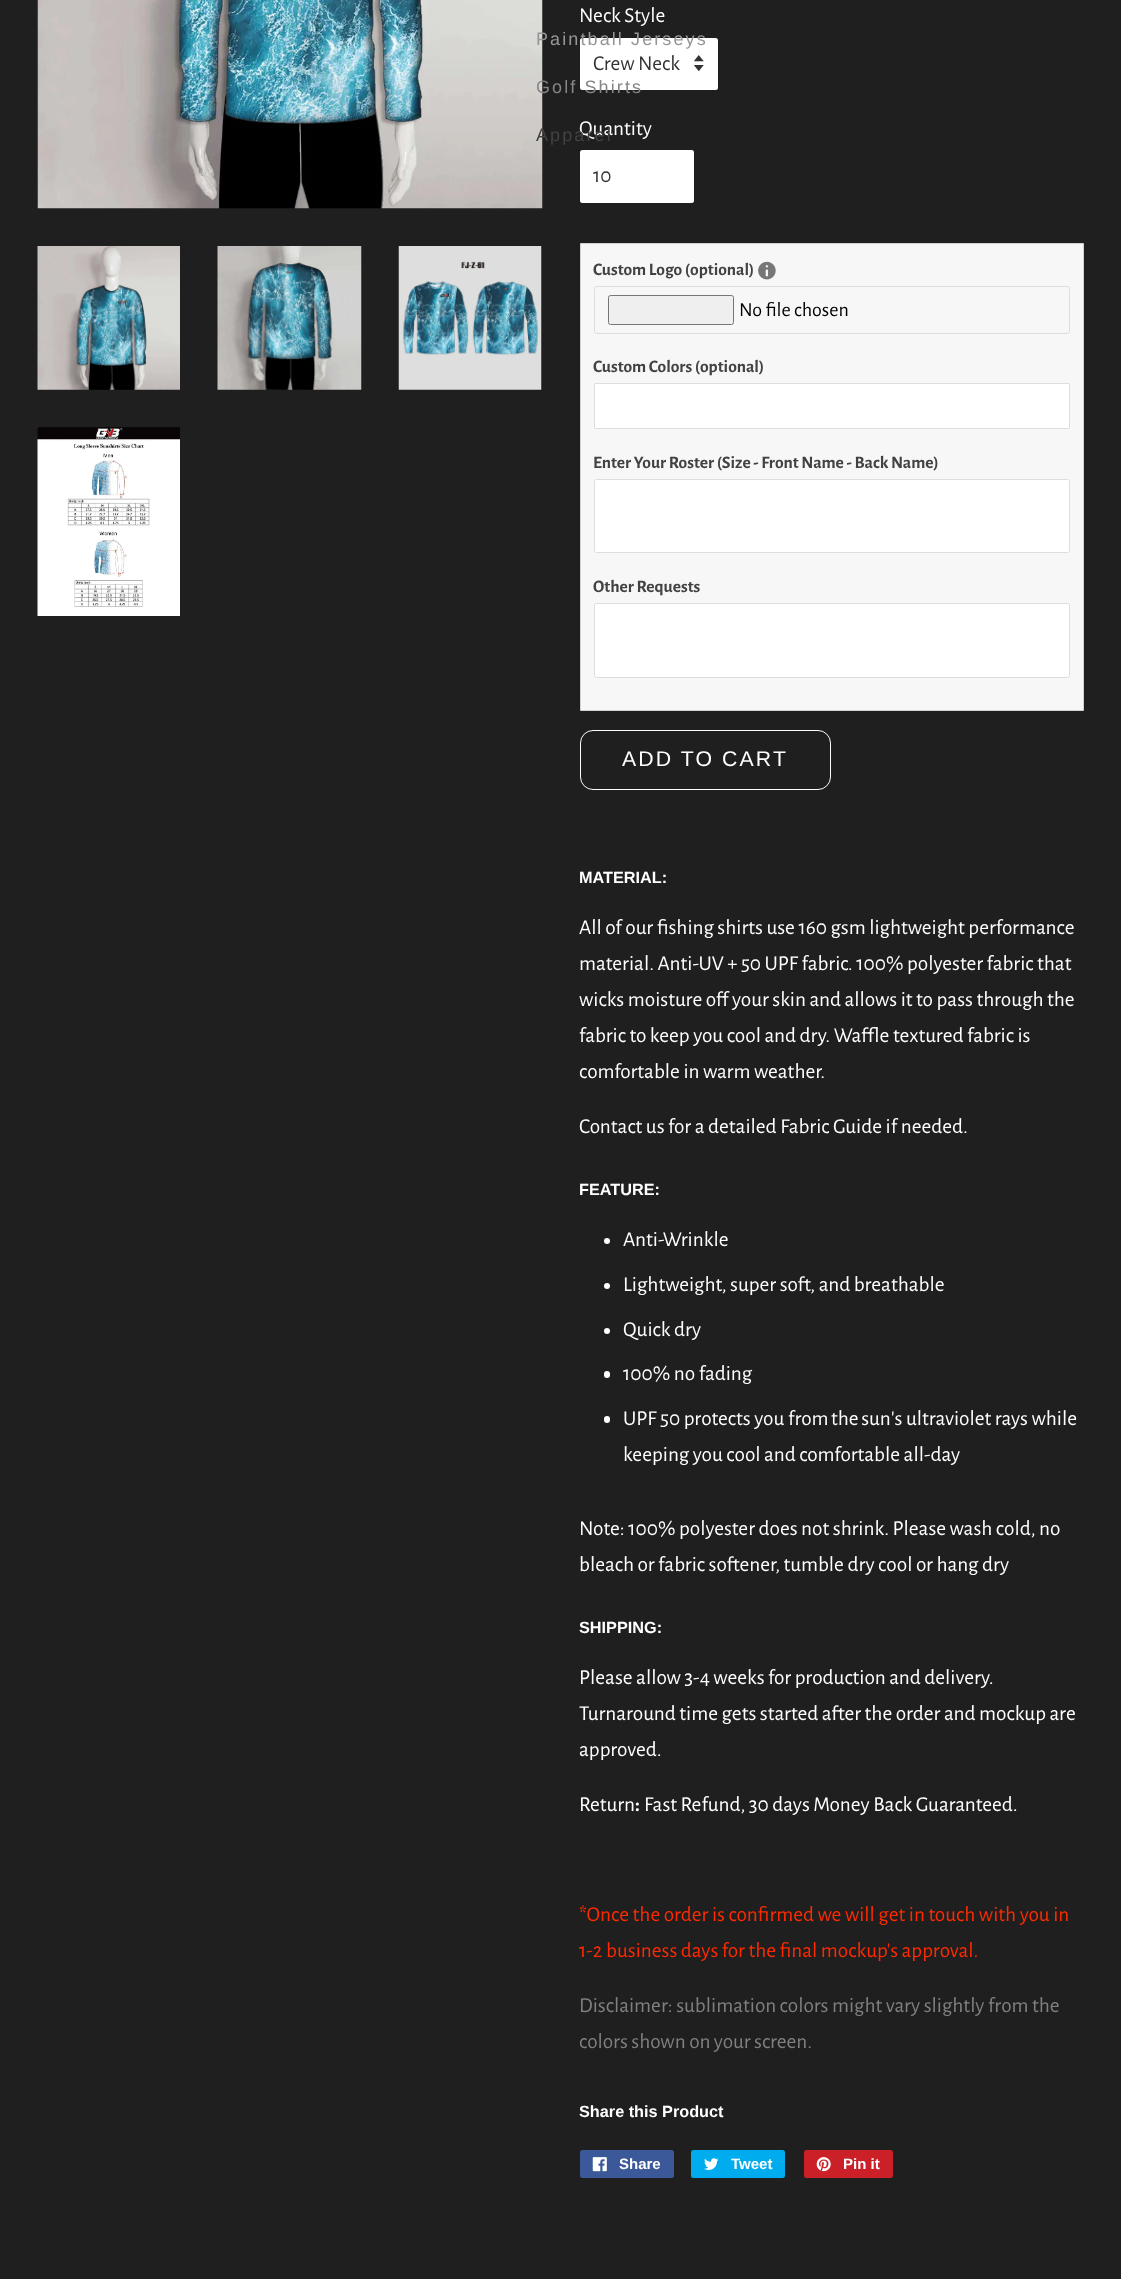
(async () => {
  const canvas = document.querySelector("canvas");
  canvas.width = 1121;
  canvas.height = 2279;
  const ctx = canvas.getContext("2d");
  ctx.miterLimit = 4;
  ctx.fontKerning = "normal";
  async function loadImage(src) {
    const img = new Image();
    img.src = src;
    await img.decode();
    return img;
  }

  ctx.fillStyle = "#1f1f1f";
  ctx.fillRect(0, 0, 1121, 2279);
  ctx.drawImage(await loadImage("img/1.png"), 37, 0, 506, 209);
  ctx.drawImage(await loadImage("img/2.png"), 37, 246, 143, 144);
  ctx.drawImage(await loadImage("img/3.png"), 217, 246, 145, 144);
  ctx.drawImage(await loadImage("img/4.png"), 398, 246, 144, 144);
  ctx.drawImage(await loadImage("img/5.png"), 37, 427, 143, 189);
  ctx.fillStyle = "#ffffff";
  ctx.beginPath();
  ctx.roundRect(580, 38, 138, 52, 2.5);
  ctx.fill();
  ctx.drawImage(await loadImage("img/6.png"), 694, 55, 10, 16);
  ctx.beginPath();
  ctx.roundRect(580.5, 38.5, 137, 51, 2);
  ctx.strokeStyle = "rgba(255, 255, 255, 0.15)";
  ctx.stroke();
  ctx.beginPath();
  ctx.roundRect(580, 150, 114, 53, 2.5);
  ctx.fill();
  ctx.beginPath();
  ctx.roundRect(580.5, 150.5, 113, 52, 2);
  ctx.stroke();
  ctx.fillStyle = "#f7f7f7";
  ctx.beginPath();
  ctx.rect(580.5, 243.5, 503, 467);
  ctx.fill();
  ctx.strokeStyle = "#d1d1d1";
  ctx.stroke();
  ctx.drawImage(await loadImage("img/7.png"), 758, 261, 18, 19);
  ctx.beginPath();
  ctx.roundRect(594.5, 286.5, 475, 47, 2);
  ctx.strokeStyle = "#dddddd";
  ctx.stroke();
  ctx.fillStyle = "#efefef";
  ctx.beginPath();
  ctx.roundRect(608.5, 295.5, 125, 29, 2);
  ctx.fill();
  ctx.strokeStyle = "#767676";
  ctx.stroke();
  ctx.fillStyle = "#ffffff";
  ctx.beginPath();
  ctx.rect(594.5, 383.5, 475, 45);
  ctx.fill();
  ctx.strokeStyle = "#dddddd";
  ctx.stroke();
  ctx.beginPath();
  ctx.roundRect(594.5, 479.5, 475, 73, 2);
  ctx.fill();
  ctx.stroke();
  ctx.beginPath();
  ctx.roundRect(594.5, 603.5, 475, 74, 2);
  ctx.fill();
  ctx.stroke();
  ctx.beginPath();
  ctx.roundRect(580.5, 730.5, 250, 59, 12.5);
  ctx.strokeStyle = "#fcfcfc";
  ctx.stroke();
  ctx.beginPath();
  ctx.arc(607, 1241, 3, 0, Math.PI * 2);
  ctx.fill();
  ctx.beginPath();
  ctx.arc(607, 1286, 3, 0, Math.PI * 2);
  ctx.fill();
  ctx.beginPath();
  ctx.arc(607, 1331, 3, 0, Math.PI * 2);
  ctx.fill();
  ctx.beginPath();
  ctx.roundRect(604, 1371, 6, 7, 3);
  ctx.fill();
  ctx.beginPath();
  ctx.roundRect(604, 1416, 6, 7, 3);
  ctx.fill();
  ctx.fillStyle = "#3b5998";
  ctx.beginPath();
  ctx.roundRect(580, 2150, 94, 28, 2.5);
  ctx.fill();
  ctx.drawImage(await loadImage("img/8.png"), 592, 2157, 15, 15);
  ctx.fillStyle = "#00aced";
  ctx.beginPath();
  ctx.roundRect(691, 2150, 94, 28, 2.5);
  ctx.fill();
  ctx.drawImage(await loadImage("img/9.png"), 704, 2158, 15, 12);
  ctx.fillStyle = "#cb2027";
  ctx.beginPath();
  ctx.roundRect(804, 2150, 89, 28, 2.5);
  ctx.fill();
  ctx.drawImage(await loadImage("img/10.png"), 816, 2157, 15, 15);
  ctx.font = "21.25px Alegreya Sans";
  ctx.fillStyle = "#ffffff";
  ctx.fillText("Neck Style", 579, 22);
  ctx.fillStyle = "#333333";
  ctx.fillText("Crew Neck", 593, 70);
  ctx.fillStyle = "#ffffff";
  ctx.fillText("Quantity", 579, 135);
  ctx.fillStyle = "#333333";
  ctx.fillText("10", 593, 182);
  ctx.font = "bold 17.5px Alegreya Sans";
  ctx.fillStyle = "#424242";
  ctx.fillText("Custom Logo (optional)", 593, 275);
  ctx.font = "20px Alegreya Sans";
  ctx.fillStyle = "#000000";
  ctx.fillText("No file chosen", 739, 316);
  ctx.font = "bold 17.5px Alegreya Sans";
  ctx.fillStyle = "#424242";
  for (const [text, x, y] of [
    ["Custom Colors (optional)", 593, 372],
    ["Enter Your Roster (Size - Front Name - Back Name)", 593, 468],
    ["Other Requests", 593, 592],
  ]) {
    ctx.fillText(text, x, y);
  }
  ctx.letterSpacing = "2.1px";
  ctx.font = "21.25px Arimo";
  ctx.fillStyle = "#ffffff";
  ctx.fillText("ADD TO CART", 622, 766);
  ctx.letterSpacing = "0px";
  ctx.font = "bold 16.25px Arimo";
  ctx.fillText("MATERIAL:", 579, 883);
  ctx.font = "21.25px Alegreya Sans";
  for (const [text, x, y] of [
    ["All of our fishing shirts use 160 gsm lightweight performance", 579, 934],
    ["material. Anti-UV + 50 UPF fabric. 100% polyester fabric that", 579, 970],
    ["wicks moisture off your skin and allows it to pass through the", 579, 1006],
    ["fabric to keep you cool and dry. Waffle textured fabric is", 579, 1042],
    ["comfortable in warm weather.", 579, 1078],
    ["Contact us for a detailed Fabric Guide if needed.", 579, 1133],
  ]) {
    ctx.fillText(text, x, y);
  }
  ctx.font = "bold 16.25px Arimo";
  ctx.fillText("FEATURE:", 579, 1195);
  ctx.font = "21.25px Alegreya Sans";
  for (const [text, x, y] of [
    ["Anti-Wrinkle", 623, 1246],
    ["Lightweight, super soft, and breathable", 623, 1291],
    ["Quick dry", 623, 1336],
    ["100% no fading", 623, 1380],
    ["UPF 50 protects you", 623, 1425],
  ]) {
    ctx.fillText(text, x, y);
  }
  ctx.wordSpacing = "-1px";
  ctx.fillText("from the sun", 788, 1425);
  ctx.wordSpacing = "0px";
  for (const [text, x, y] of [
    ["'s ultraviolet rays while", 891, 1425],
    ["keeping you cool and comfortable all-day", 623, 1461],
    ["Note: 100% polyester does not shrink. Please wash cold, no", 579, 1535],
    ["bleach or fabric softener, tumble dry cool or hang dry", 579, 1571],
  ]) {
    ctx.fillText(text, x, y);
  }
  ctx.font = "bold 16.25px Arimo";
  ctx.fillText("SHIPPING:", 579, 1633);
  ctx.font = "21.25px Alegreya Sans";
  for (const [text, x, y] of [
    ["Please allow 3-4 weeks for production and delivery.", 579, 1684],
    ["Turnaround time gets started after the order and mockup are", 579, 1720],
    ["approved.", 579, 1756],
    ["Return", 579, 1811],
  ]) {
    ctx.fillText(text, x, y);
  }
  ctx.font = "bold 21.25px Alegreya Sans";
  ctx.fillText(":", 635, 1811);
  ctx.font = "21.25px Alegreya Sans";
  ctx.fillText("Fast Refund, 30 days Money Back Guaranteed.", 644, 1811);
  ctx.fillStyle = "#ff2a00";
  ctx.fillText("*Once the order is confirmed we will get in touch with you in", 579, 1921);
  ctx.fillText("1-2 business days for the final mockup's approval.", 579, 1957);
  ctx.fillStyle = "#808080";
  ctx.fillText("Disclaimer: sublimation colors might vary slightly from the", 579, 2012);
  ctx.fillText("colors shown on your screen.", 579, 2048);
  ctx.font = "bold 16.25px Arimo";
  ctx.fillStyle = "#ffffff";
  ctx.fillText("Share this Product", 579, 2117);
  ctx.font = "bold 15px Liberation Sans";
  for (const [text, x, y] of [
    ["Share", 619, 2169],
    ["Tweet", 731, 2169],
    ["Pin it", 843, 2169],
  ]) {
    ctx.fillText(text, x, y);
  }
  ctx.letterSpacing = "2.1px";
  ctx.font = "18px Arimo";
  ctx.fillStyle = "#969696";
  ctx.fillText("Paintball Jerseys", 536, 45);
  ctx.fillStyle = "#878686";
  ctx.fillText("Golf Shirts", 536, 93);
  ctx.fillStyle = "#424242";
  ctx.fillText("Apparel", 536, 141);
})();
